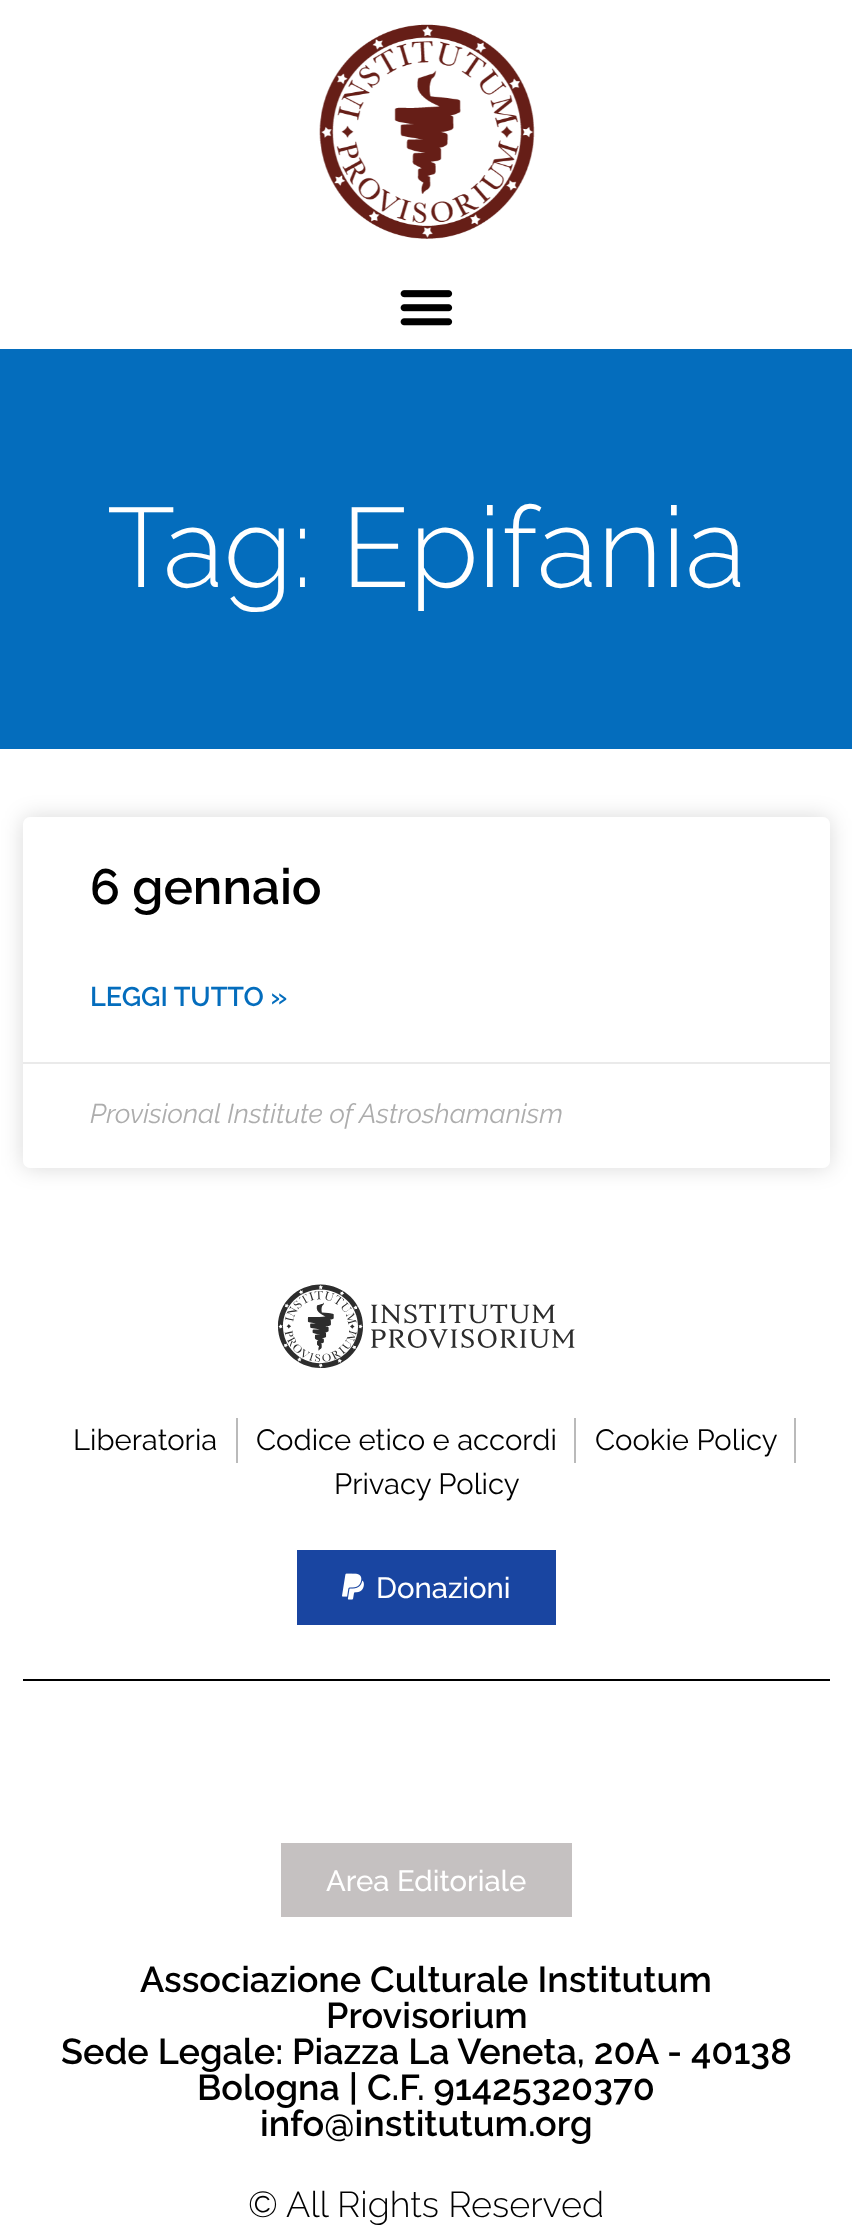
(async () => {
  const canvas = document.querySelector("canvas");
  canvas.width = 852;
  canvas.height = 2231;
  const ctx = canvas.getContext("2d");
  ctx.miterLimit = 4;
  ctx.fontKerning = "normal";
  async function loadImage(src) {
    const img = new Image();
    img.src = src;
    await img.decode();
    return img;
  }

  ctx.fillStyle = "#ffffff";
  ctx.fillRect(0, 0, 852, 2231);
  ctx.drawImage(await loadImage("img/1.png"), 319, 24, 216, 215);
  ctx.drawImage(await loadImage("img/2.png"), 400, 290, 53, 36);
  ctx.fillStyle = "#046dbd";
  ctx.fillRect(0, 349, 852, 400);
  ctx.fillStyle = "rgba(0, 0, 0, 0.15)";
  ctx.filter = "blur(11px)";
  ctx.beginPath();
  ctx.roundRect(23, 817, 807, 351, 7);
  ctx.fill();
  ctx.filter = "none";
  ctx.fillStyle = "#ffffff";
  ctx.beginPath();
  ctx.roundRect(23, 817, 807, 351, 7);
  ctx.fill();
  ctx.fillStyle = "#eaeaea";
  ctx.fillRect(23, 1062, 807, 2);
  ctx.drawImage(await loadImage("img/3.png"), 277, 1284, 298, 84);
  for (const [x, y, w, h, color] of [
    [236, 1418, 2, 45, "#bababa"],
    [574, 1418, 2, 45, "#bababa"],
    [794, 1418, 2, 45, "#bababa"],
    [297, 1550, 259, 75, "#1945a1"],
  ]) {
    ctx.fillStyle = color;
    ctx.fillRect(x, y, w, h);
  }
  ctx.drawImage(await loadImage("img/4.png"), 342, 1573, 22, 27);
  ctx.fillStyle = "#000000";
  ctx.fillRect(23, 1679, 807, 2);
  ctx.fillStyle = "#c5c1c1";
  ctx.fillRect(281, 1843, 291, 74);
  ctx.font = "300 112.5px Raleway";
  ctx.fillStyle = "#ffffff";
  ctx.fillText("Tag: Epifania", 107, 587);
  ctx.font = "600 49.5px Raleway";
  ctx.fillStyle = "#000000";
  ctx.fillText("6 gennaio", 90, 904);
  ctx.font = "600 27px Raleway";
  ctx.fillStyle = "#046dbd";
  ctx.fillText("LEGGI TUTTO »", 90, 1006);
  ctx.font = "italic 27px Raleway";
  ctx.fillStyle = "#adadad";
  ctx.fillText("Provisional Institute of Astroshamanism", 90, 1123);
  ctx.font = "29.25px Raleway";
  ctx.fillStyle = "#000000";
  for (const [text, x, y] of [
    ["Liberatoria", 73, 1450],
    ["Codice etico e accordi", 256, 1450],
    ["Cookie Policy", 595, 1450],
    ["Privacy Policy", 334, 1494],
  ]) {
    ctx.fillText(text, x, y);
  }
  ctx.font = "500 29.25px Raleway";
  ctx.fillStyle = "#ffffff";
  ctx.fillText("Donazioni", 376, 1598);
  ctx.fillText("Area Editoriale", 326, 1891);
  ctx.font = "600 36px Raleway";
  ctx.fillStyle = "#000000";
  for (const [text, x, y] of [
    ["Associazione Culturale Institutum", 140, 1992],
    ["Provisorium", 326, 2028],
    ["Sede Legale: Piazza La Veneta, 20A - 40138", 61, 2064],
    ["Bologna | C.F. 91425320370", 197, 2100],
    ["info@institutum.org", 260, 2136],
  ]) {
    ctx.fillText(text, x, y);
  }
  ctx.font = "300 36px Raleway";
  ctx.fillText("© All Rights Reserved", 248, 2217);
})();
